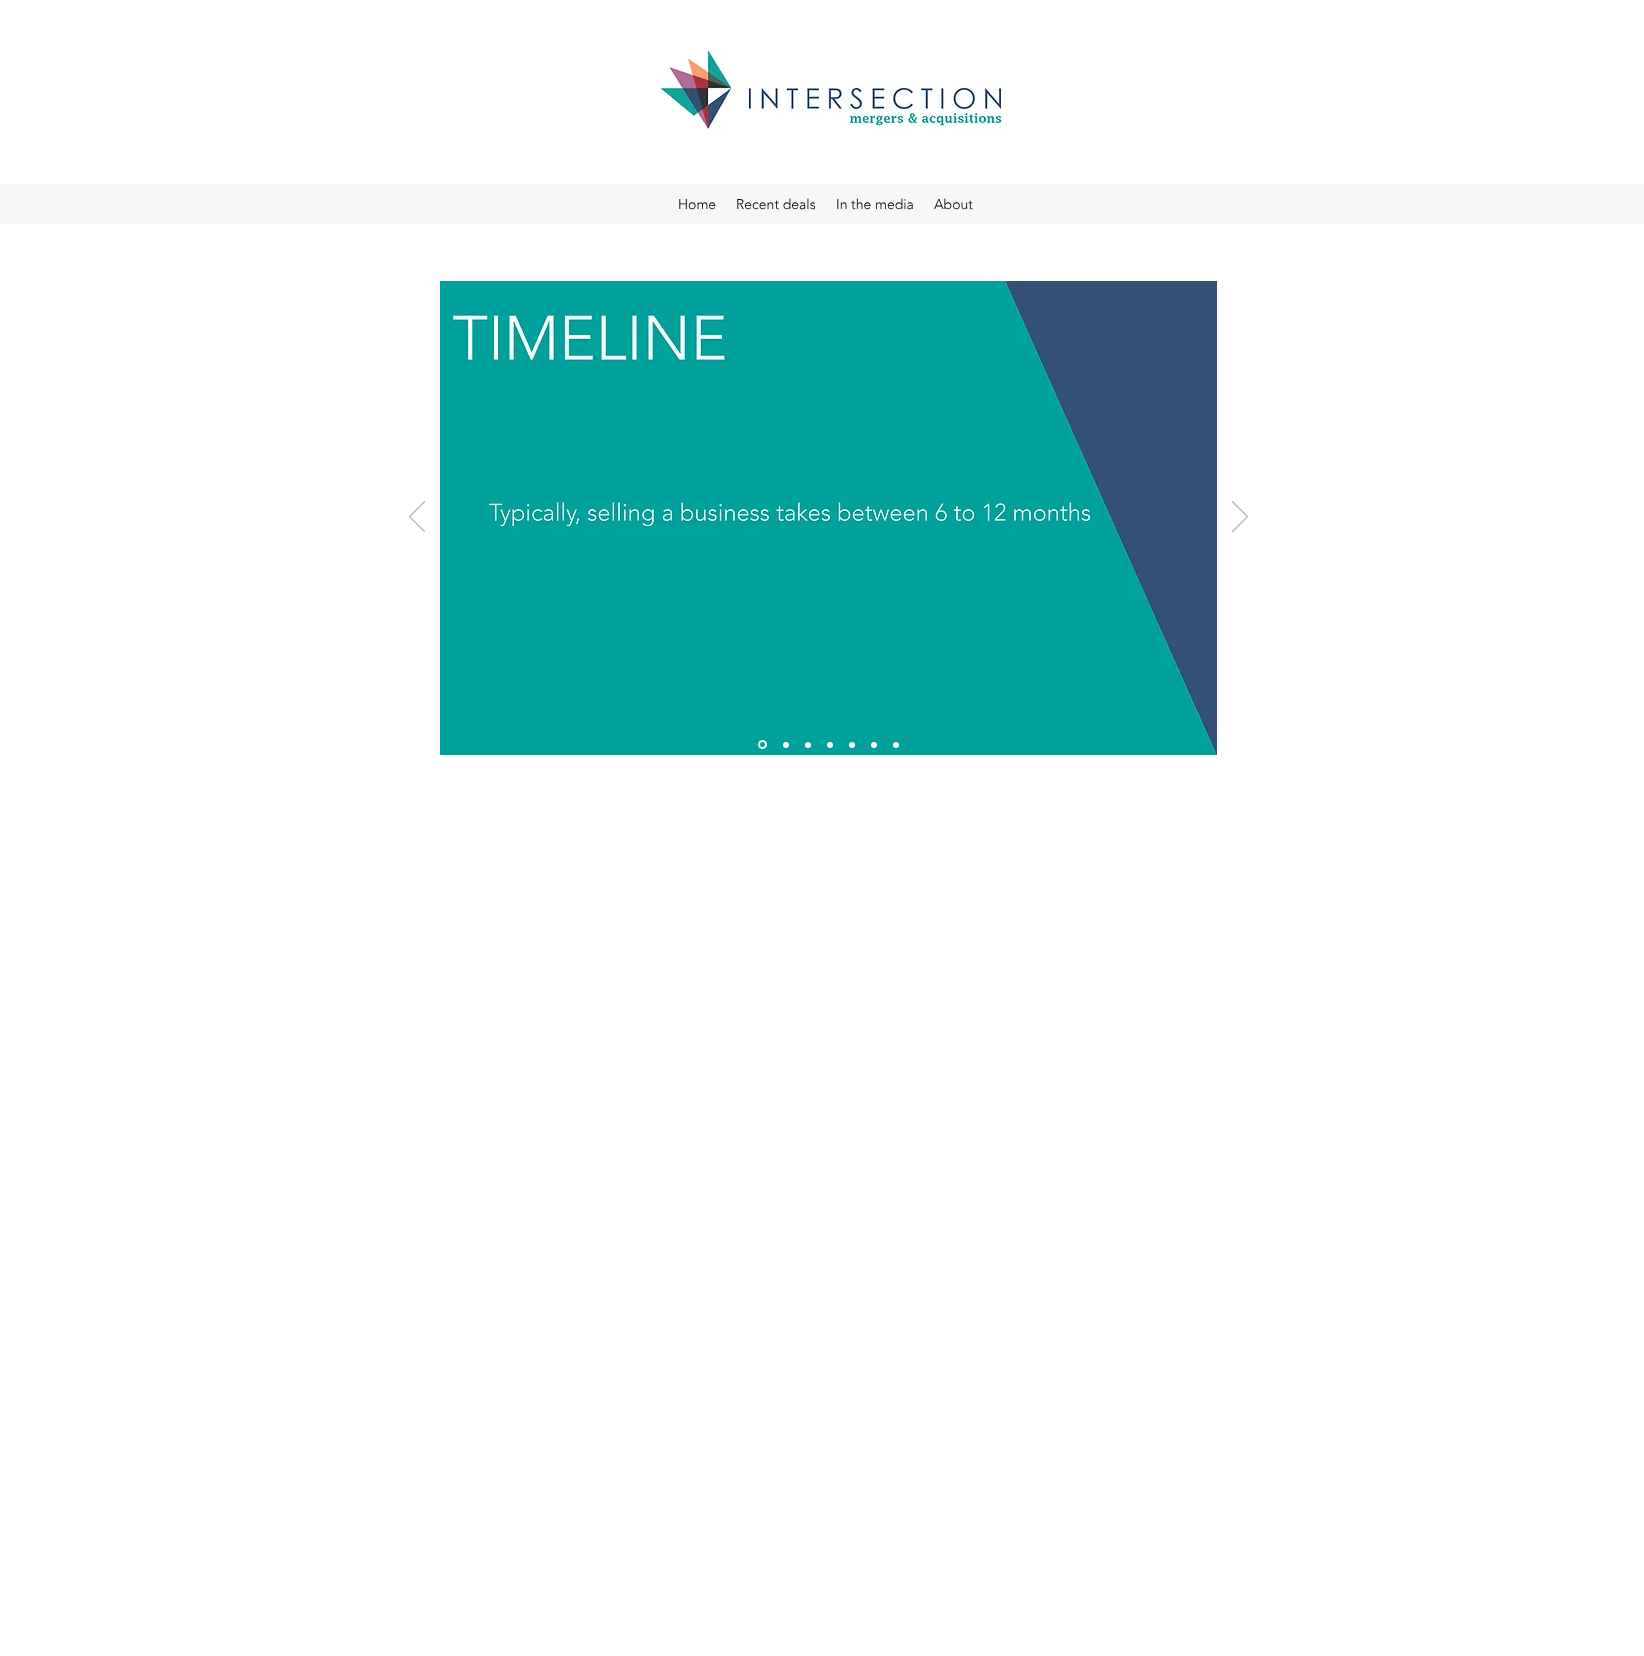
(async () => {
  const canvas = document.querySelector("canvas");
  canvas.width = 1644;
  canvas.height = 1656;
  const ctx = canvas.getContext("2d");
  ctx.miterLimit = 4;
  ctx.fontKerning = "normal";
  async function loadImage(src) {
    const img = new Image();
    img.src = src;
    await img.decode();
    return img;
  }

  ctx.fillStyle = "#ffffff";
  ctx.fillRect(0, 0, 1644, 1656);
  ctx.drawImage(await loadImage("img/1.png"), 660, 50, 347, 81);
  ctx.fillStyle = "#f7f7f7";
  ctx.fillRect(0, 184, 1644, 40);
  ctx.drawImage(await loadImage("img/2.png"), 409, 501, 16, 31);
  ctx.drawImage(await loadImage("img/3.png"), 440, 281, 777, 474);
  ctx.drawImage(await loadImage("img/4.png"), 1232, 501, 16, 31);
  ctx.beginPath();
  ctx.arc(762.5, 744.5, 3.5, 0, Math.PI * 2);
  ctx.strokeStyle = "#ffffff";
  ctx.lineWidth = 2;
  ctx.stroke();
  ctx.fillStyle = "#ffffff";
  ctx.beginPath();
  ctx.arc(786, 745, 3, 0, Math.PI * 2);
  ctx.fill();
  ctx.beginPath();
  ctx.arc(808, 745, 3, 0, Math.PI * 2);
  ctx.fill();
  ctx.beginPath();
  ctx.arc(830, 745, 3, 0, Math.PI * 2);
  ctx.fill();
  ctx.beginPath();
  ctx.arc(852, 745, 3, 0, Math.PI * 2);
  ctx.fill();
  ctx.beginPath();
  ctx.arc(874, 745, 3, 0, Math.PI * 2);
  ctx.fill();
  ctx.beginPath();
  ctx.arc(896, 745, 3, 0, Math.PI * 2);
  ctx.fill();
  ctx.font = "300 14px 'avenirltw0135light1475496'";
  ctx.fillStyle = "#000000";
  for (const [text, x, y] of [
    ["Home", 678, 209],
    ["Recent deals", 736, 209],
    ["In the media", 836, 209],
    ["About", 934, 209],
  ]) {
    ctx.fillText(text, x, y);
  }
})();
